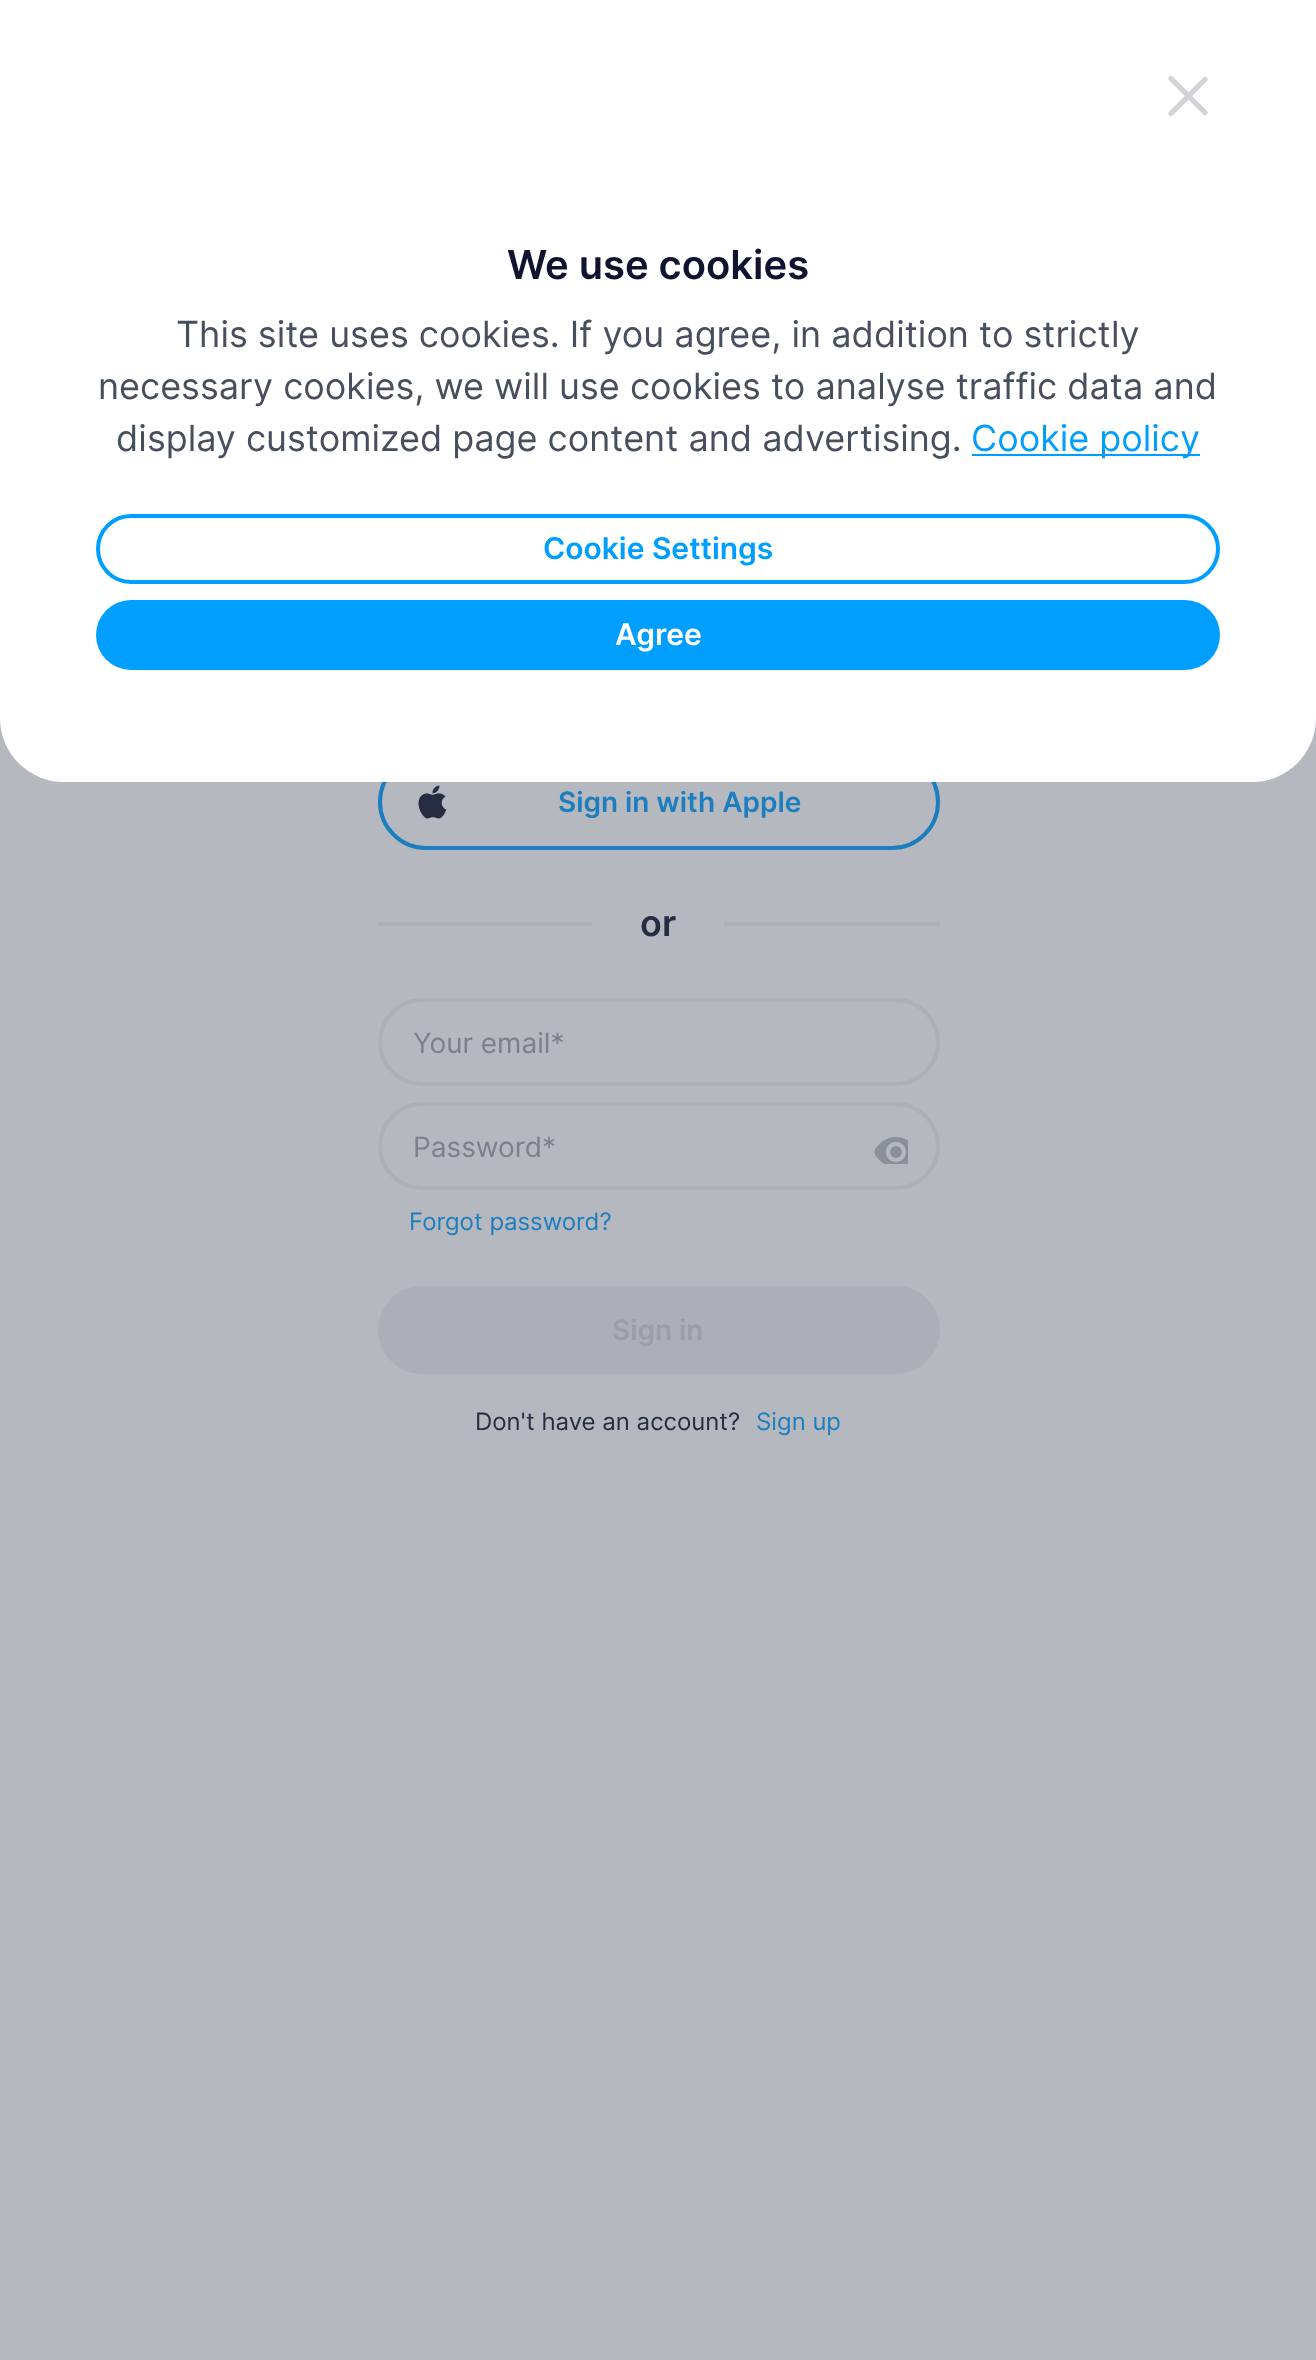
(async () => {
  const canvas = document.querySelector("canvas");
  canvas.width = 1316;
  canvas.height = 2360;
  const ctx = canvas.getContext("2d");
  ctx.miterLimit = 4;
  ctx.fontKerning = "normal";
  async function loadImage(src) {
    const img = new Image();
    img.src = src;
    await img.decode();
    return img;
  }
  let path;

  ctx.fillStyle = "#b5b9bf";
  ctx.fillRect(0, 0, 1316, 2360);
  ctx.beginPath();
  ctx.roundRect(380, 756, 558, 92, 46);
  ctx.strokeStyle = "#1c7ebf";
  ctx.lineWidth = 4;
  ctx.stroke();
  ctx.fillStyle = "#ffffff";
  ctx.beginPath();
  ctx.roundRect(0, 0, 1316, 782, [0, 0, 64, 64]);
  ctx.fill();
  path = new Path2D("M1171 78.5L1205 112.5M1171 113.5L1205 79.5");
  ctx.strokeStyle = "#d2d3d9";
  ctx.lineWidth = 5.3;
  ctx.lineCap = "round";
  ctx.stroke(path);
  ctx.fillStyle = "#009eff";
  ctx.fillRect(972, 454, 228, 2);
  ctx.beginPath();
  ctx.roundRect(98, 516, 1120, 66, 33);
  ctx.strokeStyle = "#009eff";
  ctx.lineWidth = 4;
  ctx.stroke();
  ctx.beginPath();
  ctx.roundRect(96, 600, 1124, 70, 35);
  ctx.fill();
  ctx.drawImage(await loadImage("img/1.png"), 418, 785, 29, 34);
  ctx.fillStyle = "#abafb7";
  ctx.fillRect(378, 922, 214, 4);
  ctx.fillRect(724, 922, 216, 4);
  ctx.beginPath();
  ctx.roundRect(380, 1000, 558, 84, 42);
  ctx.strokeStyle = "#abafb7";
  ctx.stroke();
  ctx.beginPath();
  ctx.roundRect(380, 1104, 558, 84, 42);
  ctx.stroke();
  ctx.drawImage(await loadImage("img/2.png"), 874, 1137, 34, 27);
  ctx.beginPath();
  ctx.roundRect(378, 1286, 562, 88, 44);
  ctx.fill();
  ctx.font = "600 40px Inter";
  ctx.fillStyle = "#101430";
  ctx.fillText("We use cookies", 507, 279);
  ctx.font = "36px Inter";
  ctx.fillStyle = "#474f5e";
  for (const [text, x, y] of [
    ["This site uses cookies. If you agree, in addition to strictly", 176, 347],
    ["necessary cookies, we will use cookies to analyse traffic data and", 98, 399],
    ["display customized page content and advertising.", 116, 451],
  ]) {
    ctx.fillText(text, x, y);
  }
  ctx.fillStyle = "#009eff";
  ctx.fillText("Cookie policy", 971, 451);
  ctx.font = "600 30px Inter";
  ctx.fillText("Cookie Settings", 543, 559);
  ctx.fillStyle = "#ffffff";
  ctx.fillText("Agree", 615, 645);
  ctx.font = "600 28px Inter";
  ctx.fillStyle = "#1c7ebf";
  ctx.fillText("Sign in with Apple", 558, 812);
  ctx.font = "600 36px Inter";
  ctx.fillStyle = "#262c42";
  ctx.fillText("or", 640, 936);
  ctx.font = "28px Inter";
  ctx.fillStyle = "#7c808d";
  ctx.fillText("Your email*", 413, 1053);
  ctx.fillText("Password*", 413, 1157);
  ctx.font = "24px Inter";
  ctx.fillStyle = "#1c7ebf";
  ctx.fillText("Forgot password?", 409, 1230);
  ctx.font = "600 28px Inter";
  ctx.fillStyle = "#9a9ea8";
  ctx.fillText("Sign in", 612, 1340);
  ctx.font = "24px Inter";
  ctx.fillStyle = "#262c42";
  ctx.fillText("Don't have an account?", 475, 1430);
  ctx.fillStyle = "#1c7ebf";
  ctx.fillText("Sign up", 756, 1430);
})();
